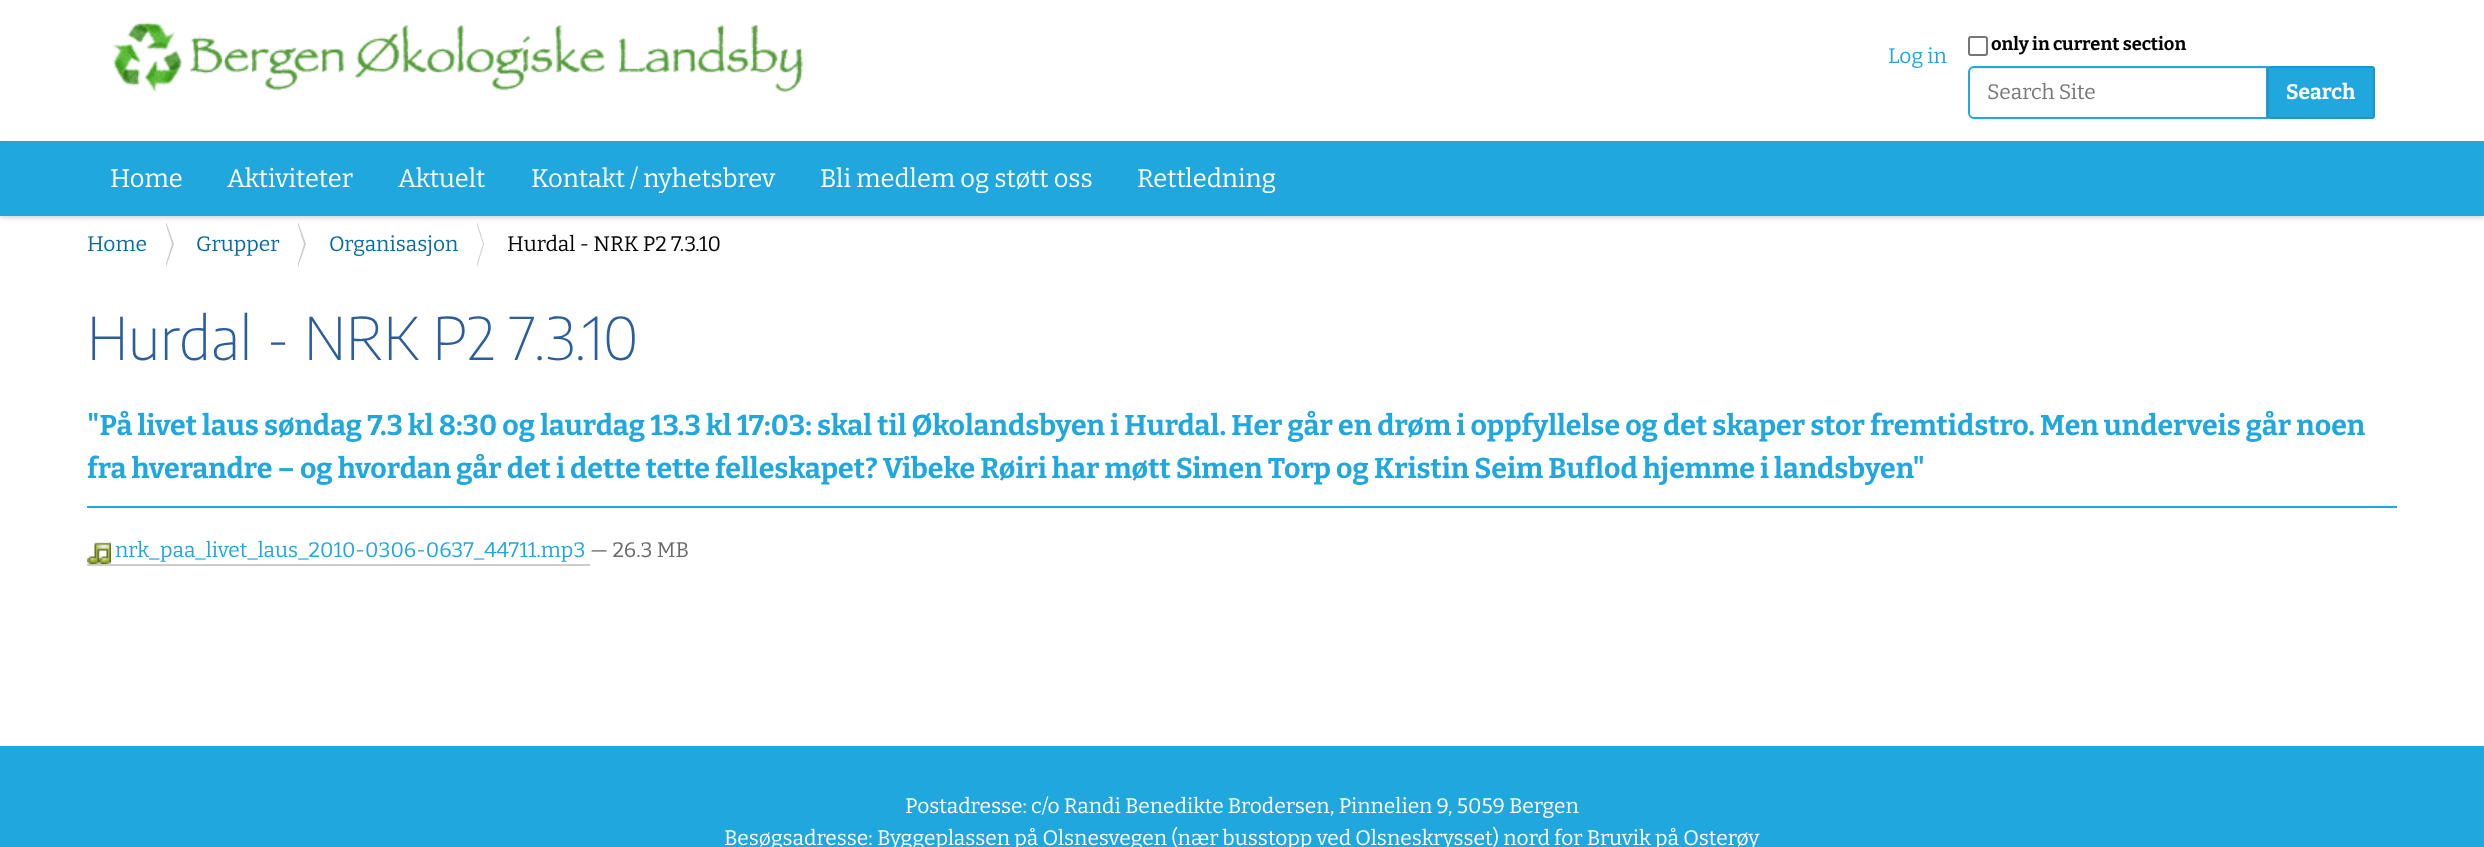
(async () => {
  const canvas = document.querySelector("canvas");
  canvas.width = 2484;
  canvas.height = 847;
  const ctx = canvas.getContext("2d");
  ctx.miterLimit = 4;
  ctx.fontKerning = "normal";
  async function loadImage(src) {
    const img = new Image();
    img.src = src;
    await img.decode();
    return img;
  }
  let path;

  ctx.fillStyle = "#ffffff";
  ctx.fillRect(0, 0, 2484, 847);
  ctx.drawImage(await loadImage("img/1.png"), 112, 22, 691, 70);
  ctx.beginPath();
  ctx.roundRect(1969, 37, 18, 18, 2);
  ctx.strokeStyle = "#767676";
  ctx.lineWidth = 2;
  ctx.stroke();
  ctx.fillStyle = "#ececec";
  path = new Path2D("M1974 69H2266V117H2267V68H1975C1972 68 1970 70 1970 73V74C1970 71 1972 69 1974 69Z");
  ctx.fill(path);
  ctx.beginPath();
  ctx.roundRect(1969, 67, 298, 51, [5, 0, 0, 5]);
  ctx.strokeStyle = "#20a7de";
  ctx.stroke();
  ctx.fillStyle = "#20a7de";
  ctx.beginPath();
  ctx.roundRect(2268, 67, 106, 51, 2);
  ctx.fill();
  ctx.strokeStyle = "#1d96c8";
  ctx.stroke();
  ctx.fillStyle = "#cccccc";
  path = new Path2D("M166 267V222L174 244Z");
  ctx.fill(path);
  ctx.fillStyle = "#ffffff";
  path = new Path2D("M165 267V222L172 244Z");
  ctx.fill(path);
  ctx.fillStyle = "#cccccc";
  path = new Path2D("M298 267V222L306 244Z");
  ctx.fill(path);
  ctx.fillStyle = "#ffffff";
  path = new Path2D("M297 267V222L304 244Z");
  ctx.fill(path);
  ctx.fillStyle = "#cccccc";
  path = new Path2D("M477 267V222L484 244Z");
  ctx.fill(path);
  ctx.fillStyle = "#ffffff";
  path = new Path2D("M476 267V222L483 244Z");
  ctx.fill(path);
  ctx.fillStyle = "rgba(0, 0, 0, 0.17)";
  ctx.filter = "blur(2px)";
  ctx.beginPath();
  ctx.rect(0, 143, 2484, 75);
  ctx.fill();
  ctx.filter = "none";
  ctx.fillStyle = "#20a7de";
  ctx.fillRect(0, 141, 2484, 75);
  ctx.fillRect(87, 506, 2310, 2);
  ctx.drawImage(await loadImage("img/2.png"), 87, 542, 24, 22);
  ctx.fillStyle = "#cccccc";
  ctx.fillRect(87, 564, 503, 2);
  ctx.fillStyle = "#20a7de";
  ctx.fillRect(0, 746, 2484, 101);
  ctx.font = "21px Bitter";
  ctx.fillText("Log in", 1888, 63);
  ctx.font = "bold 18.25px Bitter";
  ctx.fillStyle = "#000000";
  ctx.fillText("only in current section", 1991, 50);
  ctx.font = "21px Bitter";
  ctx.fillStyle = "#777777";
  ctx.fillText("Search Site", 1987, 99);
  ctx.font = "bold 21px Bitter";
  ctx.fillStyle = "#ffffff";
  ctx.fillText("Search", 2286, 99);
  ctx.font = "25.5px Bitter";
  for (const [text, x, y] of [
    ["Home", 110, 187],
    ["Aktiviteter", 227, 187],
    ["Aktuelt", 398, 187],
    ["Kontakt / nyhetsbrev", 531, 187],
    ["Bli medlem og støtt oss", 820, 187],
    ["Rettledning", 1137, 187],
  ]) {
    ctx.fillText(text, x, y);
  }
  ctx.font = "21px Bitter";
  ctx.fillStyle = "#086ca3";
  for (const [text, x, y] of [
    ["Home", 87, 251],
    ["Grupper", 196, 251],
    ["Organisasjon", 329, 251],
  ]) {
    ctx.fillText(text, x, y);
  }
  ctx.fillStyle = "#000000";
  ctx.fillText("Hurdal - NRK P2 7.3.10", 507, 251);
  ctx.font = "200 58.5px Encode Sans Condensed";
  ctx.fillStyle = "#2b5d9f";
  ctx.fillText("Hurdal - NRK P2 7.3.10", 87, 360);
  ctx.font = "bold 28.5px Bitter";
  ctx.fillStyle = "#20a7de";
  ctx.fillText("\"På livet laus søndag 7.3 kl 8:30 og laurdag 13.3 kl 17:03: skal til Økolandsbyen i Hurdal. Her går en drøm i oppfyllelse og det skaper stor fremtidstro. Men underveis går noen", 87, 435);
  ctx.fillText("fra hverandre – og hvordan går det i dette tette felleskapet? Vibeke Røiri har møtt Simen Torp og Kristin Seim Buflod hjemme i landsbyen\"", 87, 478);
  ctx.font = "21px Bitter";
  ctx.fillText("nrk_paa_livet_laus_2010-0306-0637_44711.mp3", 115, 557);
  ctx.fillStyle = "#696969";
  ctx.fillText("— 26.3 MB", 590, 557);
  ctx.fillStyle = "#ffffff";
  ctx.fillText("Postadresse: c/o Randi Benedikte Brodersen, Pinnelien 9, 5059 Bergen", 905, 813);
  ctx.fillText("Besøgsadresse: Byggeplassen på Olsnesvegen (nær busstopp ved Olsneskrysset) nord for Bruvik på Osterøy", 724, 845);
})();
